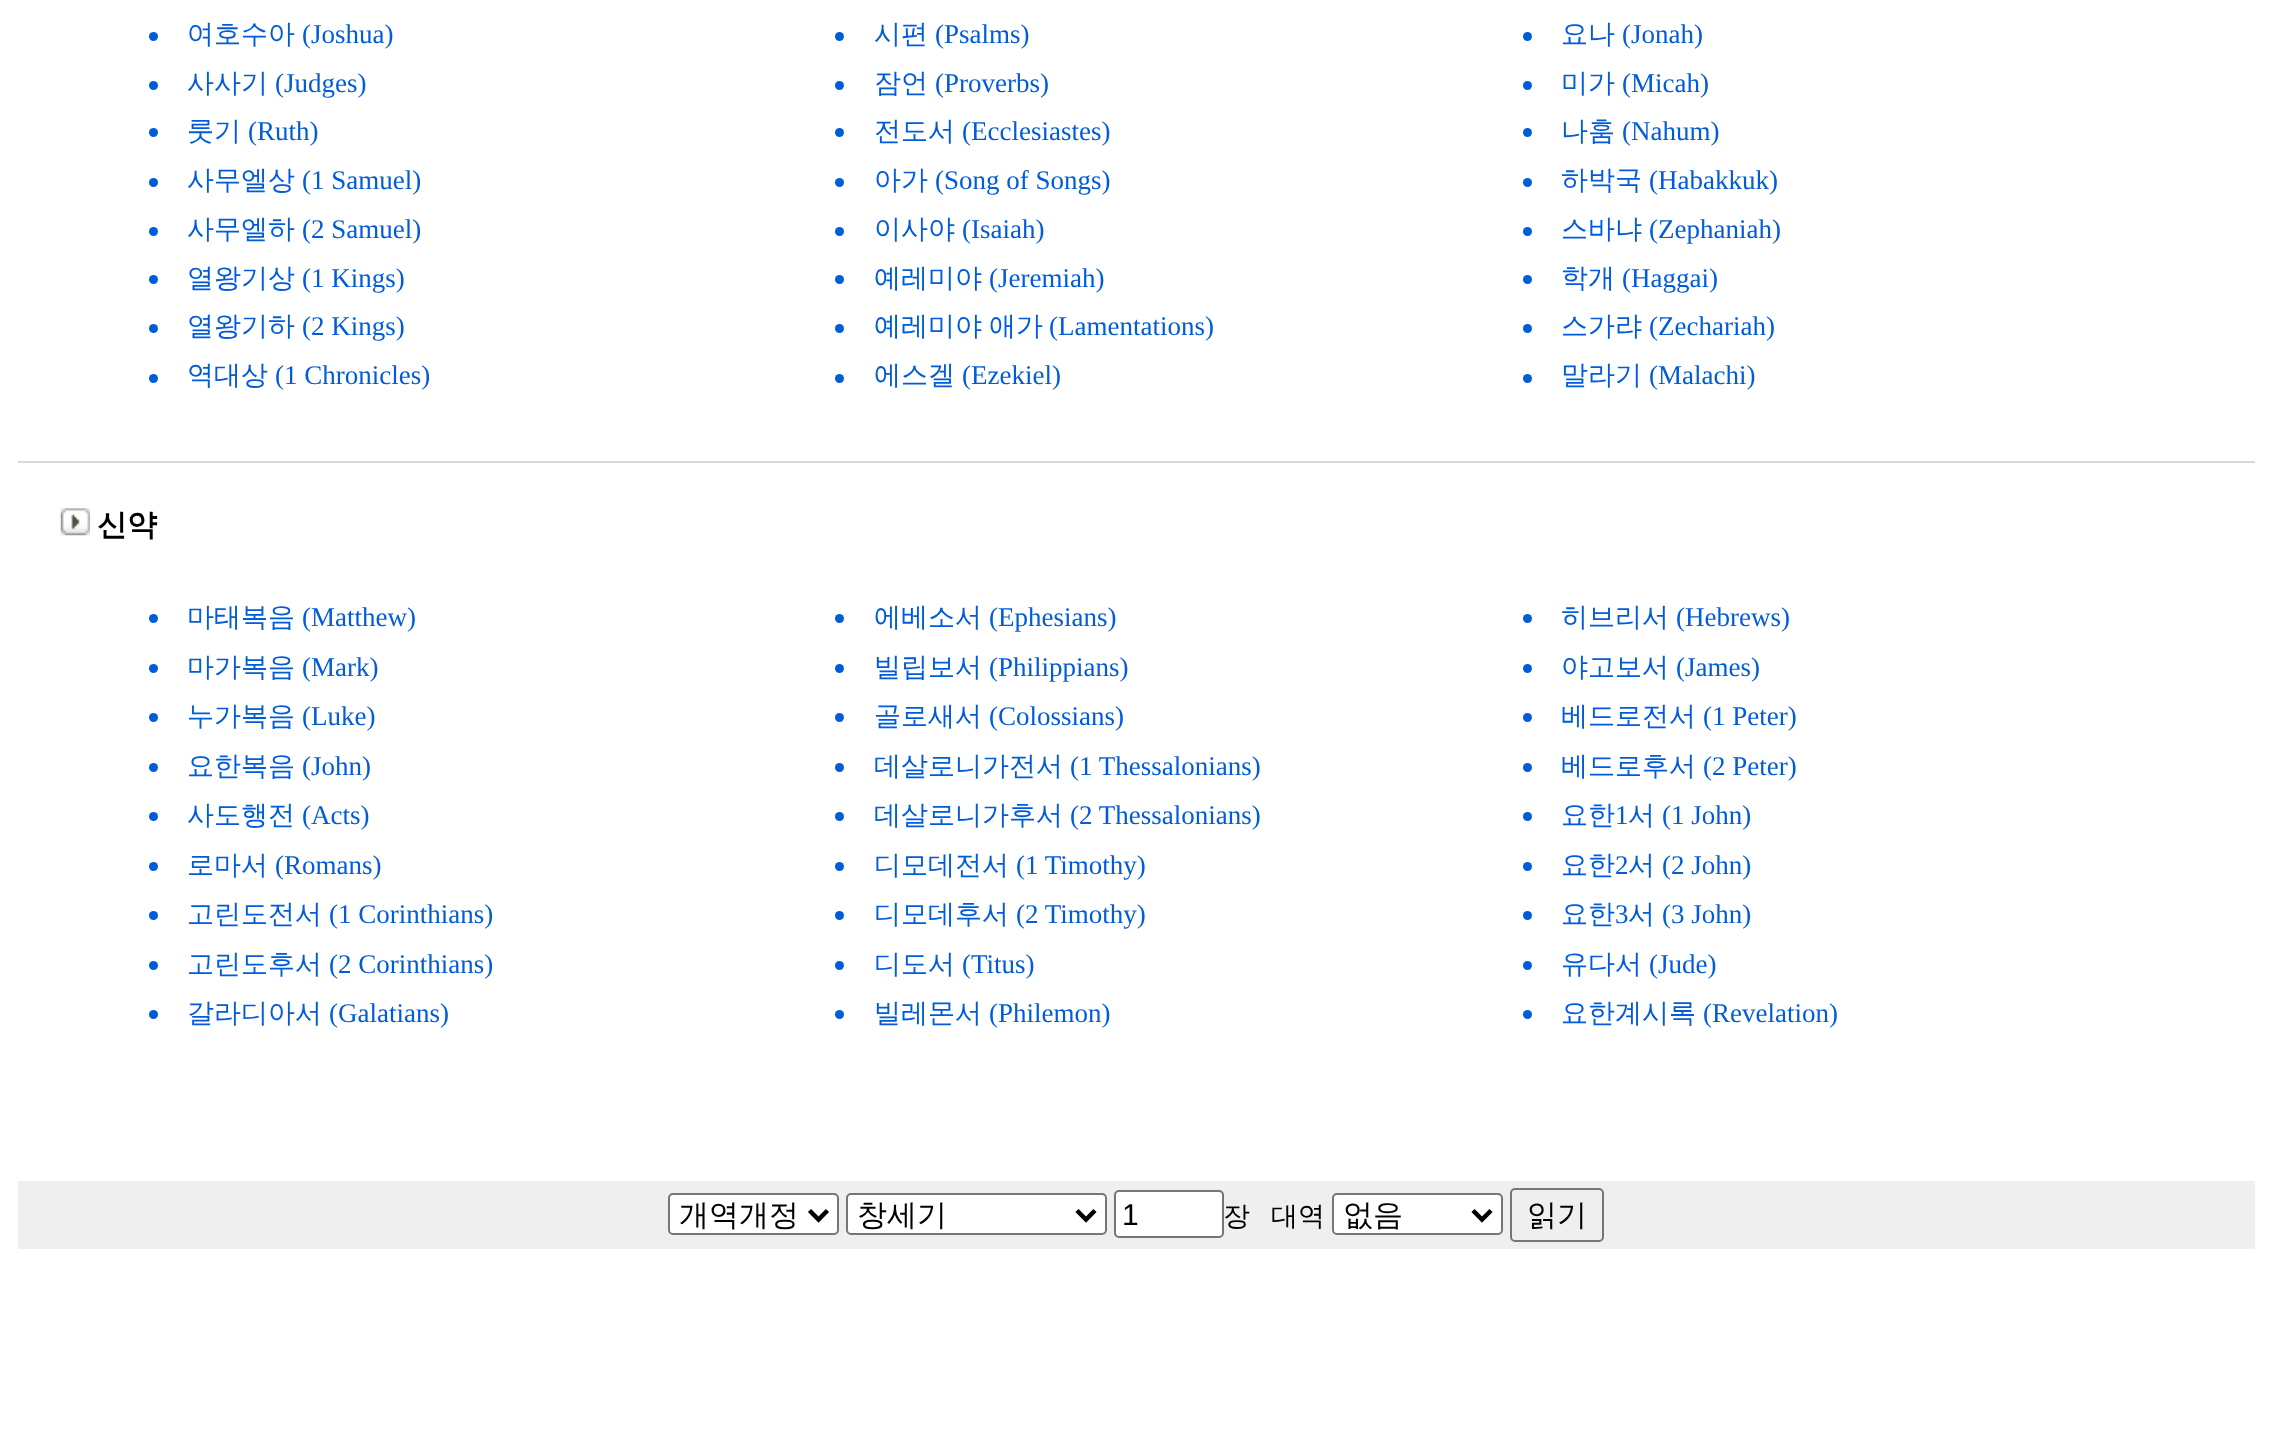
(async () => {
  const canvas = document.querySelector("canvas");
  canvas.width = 2272;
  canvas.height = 1451;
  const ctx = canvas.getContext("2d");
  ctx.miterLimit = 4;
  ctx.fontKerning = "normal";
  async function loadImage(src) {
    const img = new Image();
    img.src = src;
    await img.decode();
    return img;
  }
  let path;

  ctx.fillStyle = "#ffffff";
  ctx.fillRect(0, 0, 2272, 1451);
  ctx.fillStyle = "#005cda";
  ctx.beginPath();
  ctx.arc(153.5, 36.5, 4.5, 0, Math.PI * 2);
  ctx.fill();
  ctx.beginPath();
  ctx.arc(839.5, 36.5, 4.5, 0, Math.PI * 2);
  ctx.fill();
  ctx.beginPath();
  ctx.arc(1527.5, 36.5, 4.5, 0, Math.PI * 2);
  ctx.fill();
  ctx.beginPath();
  ctx.arc(153.5, 85.5, 4.5, 0, Math.PI * 2);
  ctx.fill();
  ctx.beginPath();
  ctx.arc(839.5, 85.5, 4.5, 0, Math.PI * 2);
  ctx.fill();
  ctx.beginPath();
  ctx.arc(1527.5, 85.5, 4.5, 0, Math.PI * 2);
  ctx.fill();
  ctx.beginPath();
  ctx.arc(153.5, 132.5, 4.5, 0, Math.PI * 2);
  ctx.fill();
  ctx.beginPath();
  ctx.arc(839.5, 132.5, 4.5, 0, Math.PI * 2);
  ctx.fill();
  ctx.beginPath();
  ctx.arc(1527.5, 132.5, 4.5, 0, Math.PI * 2);
  ctx.fill();
  ctx.beginPath();
  ctx.arc(153.5, 182.5, 4.5, 0, Math.PI * 2);
  ctx.fill();
  ctx.beginPath();
  ctx.arc(839.5, 182.5, 4.5, 0, Math.PI * 2);
  ctx.fill();
  ctx.beginPath();
  ctx.arc(1527.5, 182.5, 4.5, 0, Math.PI * 2);
  ctx.fill();
  ctx.beginPath();
  ctx.arc(153.5, 231.5, 4.5, 0, Math.PI * 2);
  ctx.fill();
  ctx.beginPath();
  ctx.arc(839.5, 231.5, 4.5, 0, Math.PI * 2);
  ctx.fill();
  ctx.beginPath();
  ctx.arc(1527.5, 231.5, 4.5, 0, Math.PI * 2);
  ctx.fill();
  ctx.beginPath();
  ctx.arc(153.5, 279.5, 4.5, 0, Math.PI * 2);
  ctx.fill();
  ctx.beginPath();
  ctx.arc(839.5, 279.5, 4.5, 0, Math.PI * 2);
  ctx.fill();
  ctx.beginPath();
  ctx.arc(1527.5, 279.5, 4.5, 0, Math.PI * 2);
  ctx.fill();
  ctx.beginPath();
  ctx.arc(153.5, 328.5, 4.5, 0, Math.PI * 2);
  ctx.fill();
  ctx.beginPath();
  ctx.arc(839.5, 328.5, 4.5, 0, Math.PI * 2);
  ctx.fill();
  ctx.beginPath();
  ctx.arc(1527.5, 328.5, 4.5, 0, Math.PI * 2);
  ctx.fill();
  ctx.beginPath();
  ctx.arc(153.5, 378.5, 4.5, 0, Math.PI * 2);
  ctx.fill();
  ctx.beginPath();
  ctx.arc(839.5, 378.5, 4.5, 0, Math.PI * 2);
  ctx.fill();
  ctx.beginPath();
  ctx.arc(1527.5, 378.5, 4.5, 0, Math.PI * 2);
  ctx.fill();
  ctx.fillStyle = "#d8d8d8";
  ctx.fillRect(18, 461, 2237, 2);
  ctx.drawImage(await loadImage("img/1.png"), 60, 508, 30, 28);
  ctx.fillStyle = "#005cda";
  ctx.beginPath();
  ctx.arc(153.5, 618.5, 4.5, 0, Math.PI * 2);
  ctx.fill();
  ctx.beginPath();
  ctx.arc(839.5, 618.5, 4.5, 0, Math.PI * 2);
  ctx.fill();
  ctx.beginPath();
  ctx.arc(1527.5, 618.5, 4.5, 0, Math.PI * 2);
  ctx.fill();
  ctx.beginPath();
  ctx.arc(153.5, 668.5, 4.5, 0, Math.PI * 2);
  ctx.fill();
  ctx.beginPath();
  ctx.arc(839.5, 668.5, 4.5, 0, Math.PI * 2);
  ctx.fill();
  ctx.beginPath();
  ctx.arc(1527.5, 668.5, 4.5, 0, Math.PI * 2);
  ctx.fill();
  ctx.beginPath();
  ctx.arc(153.5, 717.5, 4.5, 0, Math.PI * 2);
  ctx.fill();
  ctx.beginPath();
  ctx.arc(839.5, 717.5, 4.5, 0, Math.PI * 2);
  ctx.fill();
  ctx.beginPath();
  ctx.arc(1527.5, 717.5, 4.5, 0, Math.PI * 2);
  ctx.fill();
  ctx.beginPath();
  ctx.arc(153.5, 767.5, 4.5, 0, Math.PI * 2);
  ctx.fill();
  ctx.beginPath();
  ctx.arc(839.5, 767.5, 4.5, 0, Math.PI * 2);
  ctx.fill();
  ctx.beginPath();
  ctx.arc(1527.5, 767.5, 4.5, 0, Math.PI * 2);
  ctx.fill();
  ctx.beginPath();
  ctx.arc(153.5, 816.5, 4.5, 0, Math.PI * 2);
  ctx.fill();
  ctx.beginPath();
  ctx.arc(839.5, 816.5, 4.5, 0, Math.PI * 2);
  ctx.fill();
  ctx.beginPath();
  ctx.arc(1527.5, 816.5, 4.5, 0, Math.PI * 2);
  ctx.fill();
  ctx.beginPath();
  ctx.arc(153.5, 866.5, 4.5, 0, Math.PI * 2);
  ctx.fill();
  ctx.beginPath();
  ctx.arc(839.5, 866.5, 4.5, 0, Math.PI * 2);
  ctx.fill();
  ctx.beginPath();
  ctx.arc(1527.5, 866.5, 4.5, 0, Math.PI * 2);
  ctx.fill();
  ctx.beginPath();
  ctx.arc(153.5, 915.5, 4.5, 0, Math.PI * 2);
  ctx.fill();
  ctx.beginPath();
  ctx.arc(839.5, 915.5, 4.5, 0, Math.PI * 2);
  ctx.fill();
  ctx.beginPath();
  ctx.arc(1527.5, 915.5, 4.5, 0, Math.PI * 2);
  ctx.fill();
  ctx.beginPath();
  ctx.arc(153.5, 965.5, 4.5, 0, Math.PI * 2);
  ctx.fill();
  ctx.beginPath();
  ctx.arc(839.5, 965.5, 4.5, 0, Math.PI * 2);
  ctx.fill();
  ctx.beginPath();
  ctx.arc(1527.5, 965.5, 4.5, 0, Math.PI * 2);
  ctx.fill();
  ctx.beginPath();
  ctx.arc(153.5, 1014.5, 4.5, 0, Math.PI * 2);
  ctx.fill();
  ctx.beginPath();
  ctx.arc(839.5, 1014.5, 4.5, 0, Math.PI * 2);
  ctx.fill();
  ctx.beginPath();
  ctx.arc(1527.5, 1014.5, 4.5, 0, Math.PI * 2);
  ctx.fill();
  ctx.fillStyle = "#efefef";
  ctx.fillRect(18, 1181, 2237, 68);
  ctx.fillStyle = "#ffffff";
  ctx.beginPath();
  ctx.roundRect(669, 1194, 169, 40, 4);
  ctx.fill();
  ctx.strokeStyle = "#767676";
  ctx.lineWidth = 2;
  ctx.stroke();
  path = new Path2D("M809.5 1210.5L818.5 1219.5L827.5 1210.5");
  ctx.strokeStyle = "#000000";
  ctx.lineWidth = 4.5;
  ctx.stroke(path);
  ctx.beginPath();
  ctx.roundRect(847, 1194, 259, 40, 4);
  ctx.fill();
  ctx.strokeStyle = "#767676";
  ctx.lineWidth = 2;
  ctx.stroke();
  path = new Path2D("M1077 1210.5L1086 1219.5L1095 1210.5");
  ctx.strokeStyle = "#000000";
  ctx.lineWidth = 4.5;
  ctx.stroke(path);
  ctx.beginPath();
  ctx.roundRect(1115, 1191, 108, 46, 4);
  ctx.fill();
  ctx.strokeStyle = "#767676";
  ctx.lineWidth = 2;
  ctx.stroke();
  ctx.beginPath();
  ctx.roundRect(1333, 1194, 169, 40, 4);
  ctx.fill();
  ctx.stroke();
  path = new Path2D("M1473 1210.5L1482 1219.5L1491 1210.5");
  ctx.strokeStyle = "#000000";
  ctx.lineWidth = 4.5;
  ctx.stroke(path);
  ctx.beginPath();
  ctx.roundRect(1511, 1189, 92, 52, 4);
  ctx.strokeStyle = "#767676";
  ctx.lineWidth = 2;
  ctx.stroke();
  ctx.font = "500 27px WenQuanYi Zen Hei";
  ctx.fillStyle = "#005cda";
  ctx.fillText("여호수아", 187, 43);
  ctx.font = "27px Liberation Serif";
  ctx.fillText("(Joshua)", 302, 43);
  ctx.font = "500 27px WenQuanYi Zen Hei";
  ctx.fillText("시편", 874, 43);
  ctx.font = "27px Liberation Serif";
  ctx.fillText("(Psalms)", 935, 43);
  ctx.font = "500 27px WenQuanYi Zen Hei";
  ctx.fillText("요나", 1561, 43);
  ctx.font = "27px Liberation Serif";
  ctx.fillText("(Jonah)", 1622, 43);
  ctx.font = "500 27px WenQuanYi Zen Hei";
  ctx.fillText("사사기", 187, 92);
  ctx.font = "27px Liberation Serif";
  ctx.fillText("(Judges)", 275, 92);
  ctx.font = "500 27px WenQuanYi Zen Hei";
  ctx.fillText("잠언", 874, 92);
  ctx.font = "27px Liberation Serif";
  ctx.fillText("(Proverbs)", 935, 92);
  ctx.font = "500 27px WenQuanYi Zen Hei";
  ctx.fillText("미가", 1561, 92);
  ctx.font = "27px Liberation Serif";
  ctx.fillText("(Micah)", 1622, 92);
  ctx.font = "500 27px WenQuanYi Zen Hei";
  ctx.fillText("룻기", 187, 140);
  ctx.font = "27px Liberation Serif";
  ctx.fillText("(Ruth)", 248, 140);
  ctx.font = "500 27px WenQuanYi Zen Hei";
  ctx.fillText("전도서", 874, 140);
  ctx.font = "27px Liberation Serif";
  ctx.fillText("(Ecclesiastes)", 962, 140);
  ctx.font = "500 27px WenQuanYi Zen Hei";
  ctx.fillText("나훔", 1561, 140);
  ctx.font = "27px Liberation Serif";
  ctx.fillText("(Nahum)", 1622, 140);
  ctx.font = "500 27px WenQuanYi Zen Hei";
  ctx.fillText("사무엘상", 187, 189);
  ctx.font = "27px Liberation Serif";
  ctx.fillText("(1 Samuel)", 302, 189);
  ctx.font = "500 27px WenQuanYi Zen Hei";
  ctx.fillText("아가", 874, 189);
  ctx.font = "27px Liberation Serif";
  ctx.fillText("(Song of Songs)", 935, 189);
  ctx.font = "500 27px WenQuanYi Zen Hei";
  ctx.fillText("하박국", 1561, 189);
  ctx.font = "27px Liberation Serif";
  ctx.fillText("(Habakkuk)", 1649, 189);
  ctx.font = "500 27px WenQuanYi Zen Hei";
  ctx.fillText("사무엘하", 187, 238);
  ctx.font = "27px Liberation Serif";
  ctx.fillText("(2 Samuel)", 302, 238);
  ctx.font = "500 27px WenQuanYi Zen Hei";
  ctx.fillText("이사야", 874, 238);
  ctx.font = "27px Liberation Serif";
  ctx.fillText("(Isaiah)", 962, 238);
  ctx.font = "500 27px WenQuanYi Zen Hei";
  ctx.fillText("스바냐", 1561, 238);
  ctx.font = "27px Liberation Serif";
  ctx.fillText("(Zephaniah)", 1649, 238);
  ctx.font = "500 27px WenQuanYi Zen Hei";
  ctx.fillText("열왕기상", 187, 287);
  ctx.font = "27px Liberation Serif";
  ctx.fillText("(1 Kings)", 302, 287);
  ctx.font = "500 27px WenQuanYi Zen Hei";
  ctx.fillText("예레미야", 874, 287);
  ctx.font = "27px Liberation Serif";
  ctx.fillText("(Jeremiah)", 989, 287);
  ctx.font = "500 27px WenQuanYi Zen Hei";
  ctx.fillText("학개", 1561, 287);
  ctx.font = "27px Liberation Serif";
  ctx.fillText("(Haggai)", 1622, 287);
  ctx.font = "500 27px WenQuanYi Zen Hei";
  ctx.fillText("열왕기하", 187, 335);
  ctx.font = "27px Liberation Serif";
  ctx.fillText("(2 Kings)", 302, 335);
  ctx.wordSpacing = "-1px";
  ctx.font = "500 27px WenQuanYi Zen Hei";
  ctx.fillText("예레미야 애가", 874, 335);
  ctx.wordSpacing = "0px";
  ctx.font = "27px Liberation Serif";
  ctx.fillText("(Lamentations)", 1049, 335);
  ctx.font = "500 27px WenQuanYi Zen Hei";
  ctx.fillText("스가랴", 1561, 335);
  ctx.font = "27px Liberation Serif";
  ctx.fillText("(Zechariah)", 1649, 335);
  ctx.font = "500 27px WenQuanYi Zen Hei";
  ctx.fillText("역대상", 187, 384);
  ctx.font = "27px Liberation Serif";
  ctx.fillText("(1 Chronicles)", 275, 384);
  ctx.font = "500 27px WenQuanYi Zen Hei";
  ctx.fillText("에스겔", 874, 384);
  ctx.font = "27px Liberation Serif";
  ctx.fillText("(Ezekiel)", 962, 384);
  ctx.font = "500 27px WenQuanYi Zen Hei";
  ctx.fillText("말라기", 1561, 384);
  ctx.font = "27px Liberation Serif";
  ctx.fillText("(Malachi)", 1649, 384);
  ctx.font = "bold 30px WenQuanYi Zen Hei";
  ctx.fillStyle = "#000000";
  ctx.fillText("신약", 97, 535);
  ctx.font = "500 27px WenQuanYi Zen Hei";
  ctx.fillStyle = "#005cda";
  ctx.fillText("마태복음", 187, 626);
  ctx.font = "27px Liberation Serif";
  ctx.fillText("(Matthew)", 302, 626);
  ctx.font = "500 27px WenQuanYi Zen Hei";
  ctx.fillText("에베소서", 874, 626);
  ctx.font = "27px Liberation Serif";
  ctx.fillText("(Ephesians)", 989, 626);
  ctx.font = "500 27px WenQuanYi Zen Hei";
  ctx.fillText("히브리서", 1561, 626);
  ctx.font = "27px Liberation Serif";
  ctx.fillText("(Hebrews)", 1676, 626);
  ctx.font = "500 27px WenQuanYi Zen Hei";
  ctx.fillText("마가복음", 187, 676);
  ctx.font = "27px Liberation Serif";
  ctx.fillText("(Mark)", 302, 676);
  ctx.font = "500 27px WenQuanYi Zen Hei";
  ctx.fillText("빌립보서", 874, 676);
  ctx.font = "27px Liberation Serif";
  ctx.fillText("(Philippians)", 989, 676);
  ctx.font = "500 27px WenQuanYi Zen Hei";
  ctx.fillText("야고보서", 1561, 676);
  ctx.font = "27px Liberation Serif";
  ctx.fillText("(James)", 1676, 676);
  ctx.font = "500 27px WenQuanYi Zen Hei";
  ctx.fillText("누가복음", 187, 725);
  ctx.font = "27px Liberation Serif";
  ctx.fillText("(Luke)", 302, 725);
  ctx.font = "500 27px WenQuanYi Zen Hei";
  ctx.fillText("골로새서", 874, 725);
  ctx.font = "27px Liberation Serif";
  ctx.fillText("(Colossians)", 989, 725);
  ctx.font = "500 27px WenQuanYi Zen Hei";
  ctx.fillText("베드로전서", 1561, 725);
  ctx.font = "27px Liberation Serif";
  ctx.fillText("(1 Peter)", 1703, 725);
  ctx.font = "500 27px WenQuanYi Zen Hei";
  ctx.fillText("요한복음", 187, 775);
  ctx.font = "27px Liberation Serif";
  ctx.fillText("(John)", 302, 775);
  ctx.font = "500 27px WenQuanYi Zen Hei";
  ctx.fillText("데살로니가전서", 874, 775);
  ctx.font = "27px Liberation Serif";
  ctx.fillText("(1 Thessalonians)", 1070, 775);
  ctx.font = "500 27px WenQuanYi Zen Hei";
  ctx.fillText("베드로후서", 1561, 775);
  ctx.font = "27px Liberation Serif";
  ctx.fillText("(2 Peter)", 1703, 775);
  ctx.font = "500 27px WenQuanYi Zen Hei";
  ctx.fillText("사도행전", 187, 824);
  ctx.font = "27px Liberation Serif";
  ctx.fillText("(Acts)", 302, 824);
  ctx.font = "500 27px WenQuanYi Zen Hei";
  ctx.fillText("데살로니가후서", 874, 824);
  ctx.font = "27px Liberation Serif";
  ctx.fillText("(2 Thessalonians)", 1070, 824);
  ctx.font = "500 27px WenQuanYi Zen Hei";
  ctx.fillText("요한", 1561, 824);
  ctx.font = "27px Liberation Serif";
  ctx.fillText("1", 1615, 824);
  ctx.font = "500 27px WenQuanYi Zen Hei";
  ctx.fillText("서", 1628, 824);
  ctx.font = "27px Liberation Serif";
  ctx.fillText("(1 John)", 1662, 824);
  ctx.font = "500 27px WenQuanYi Zen Hei";
  ctx.fillText("로마서", 187, 874);
  ctx.font = "27px Liberation Serif";
  ctx.fillText("(Romans)", 275, 874);
  ctx.font = "500 27px WenQuanYi Zen Hei";
  ctx.fillText("디모데전서", 874, 874);
  ctx.font = "27px Liberation Serif";
  ctx.fillText("(1 Timothy)", 1016, 874);
  ctx.font = "500 27px WenQuanYi Zen Hei";
  ctx.fillText("요한", 1561, 874);
  ctx.font = "27px Liberation Serif";
  ctx.fillText("2", 1615, 874);
  ctx.font = "500 27px WenQuanYi Zen Hei";
  ctx.fillText("서", 1628, 874);
  ctx.font = "27px Liberation Serif";
  ctx.fillText("(2 John)", 1662, 874);
  ctx.font = "500 27px WenQuanYi Zen Hei";
  ctx.fillText("고린도전서", 187, 923);
  ctx.font = "27px Liberation Serif";
  ctx.fillText("(1 Corinthians)", 329, 923);
  ctx.font = "500 27px WenQuanYi Zen Hei";
  ctx.fillText("디모데후서", 874, 923);
  ctx.font = "27px Liberation Serif";
  ctx.fillText("(2 Timothy)", 1016, 923);
  ctx.font = "500 27px WenQuanYi Zen Hei";
  ctx.fillText("요한", 1561, 923);
  ctx.font = "27px Liberation Serif";
  ctx.fillText("3", 1615, 923);
  ctx.font = "500 27px WenQuanYi Zen Hei";
  ctx.fillText("서", 1628, 923);
  ctx.font = "27px Liberation Serif";
  ctx.fillText("(3 John)", 1662, 923);
  ctx.font = "500 27px WenQuanYi Zen Hei";
  ctx.fillText("고린도후서", 187, 973);
  ctx.font = "27px Liberation Serif";
  ctx.fillText("(2 Corinthians)", 329, 973);
  ctx.font = "500 27px WenQuanYi Zen Hei";
  ctx.fillText("디도서", 874, 973);
  ctx.font = "27px Liberation Serif";
  ctx.fillText("(Titus)", 962, 973);
  ctx.font = "500 27px WenQuanYi Zen Hei";
  ctx.fillText("유다서", 1561, 973);
  ctx.font = "27px Liberation Serif";
  ctx.fillText("(Jude)", 1649, 973);
  ctx.font = "500 27px WenQuanYi Zen Hei";
  ctx.fillText("갈라디아서", 187, 1022);
  ctx.font = "27px Liberation Serif";
  ctx.fillText("(Galatians)", 329, 1022);
  ctx.font = "500 27px WenQuanYi Zen Hei";
  ctx.fillText("빌레몬서", 874, 1022);
  ctx.font = "27px Liberation Serif";
  ctx.fillText("(Philemon)", 989, 1022);
  ctx.font = "500 27px WenQuanYi Zen Hei";
  ctx.fillText("요한계시록", 1561, 1022);
  ctx.font = "27px Liberation Serif";
  ctx.fillText("(Revelation)", 1703, 1022);
  ctx.font = "500 30px WenQuanYi Zen Hei";
  ctx.fillStyle = "#000000";
  ctx.fillText("개역개정", 679, 1225);
  ctx.fillText("창세기", 857, 1225);
  ctx.font = "30px Liberation Sans";
  ctx.fillText("1", 1122, 1225);
  ctx.font = "500 27px WenQuanYi Zen Hei";
  ctx.fillText("장", 1223, 1225);
  ctx.fillText("대역", 1271, 1225);
  ctx.font = "500 30px WenQuanYi Zen Hei";
  ctx.fillText("없음", 1343, 1225);
  ctx.fillText("읽기", 1527, 1225);
})();
